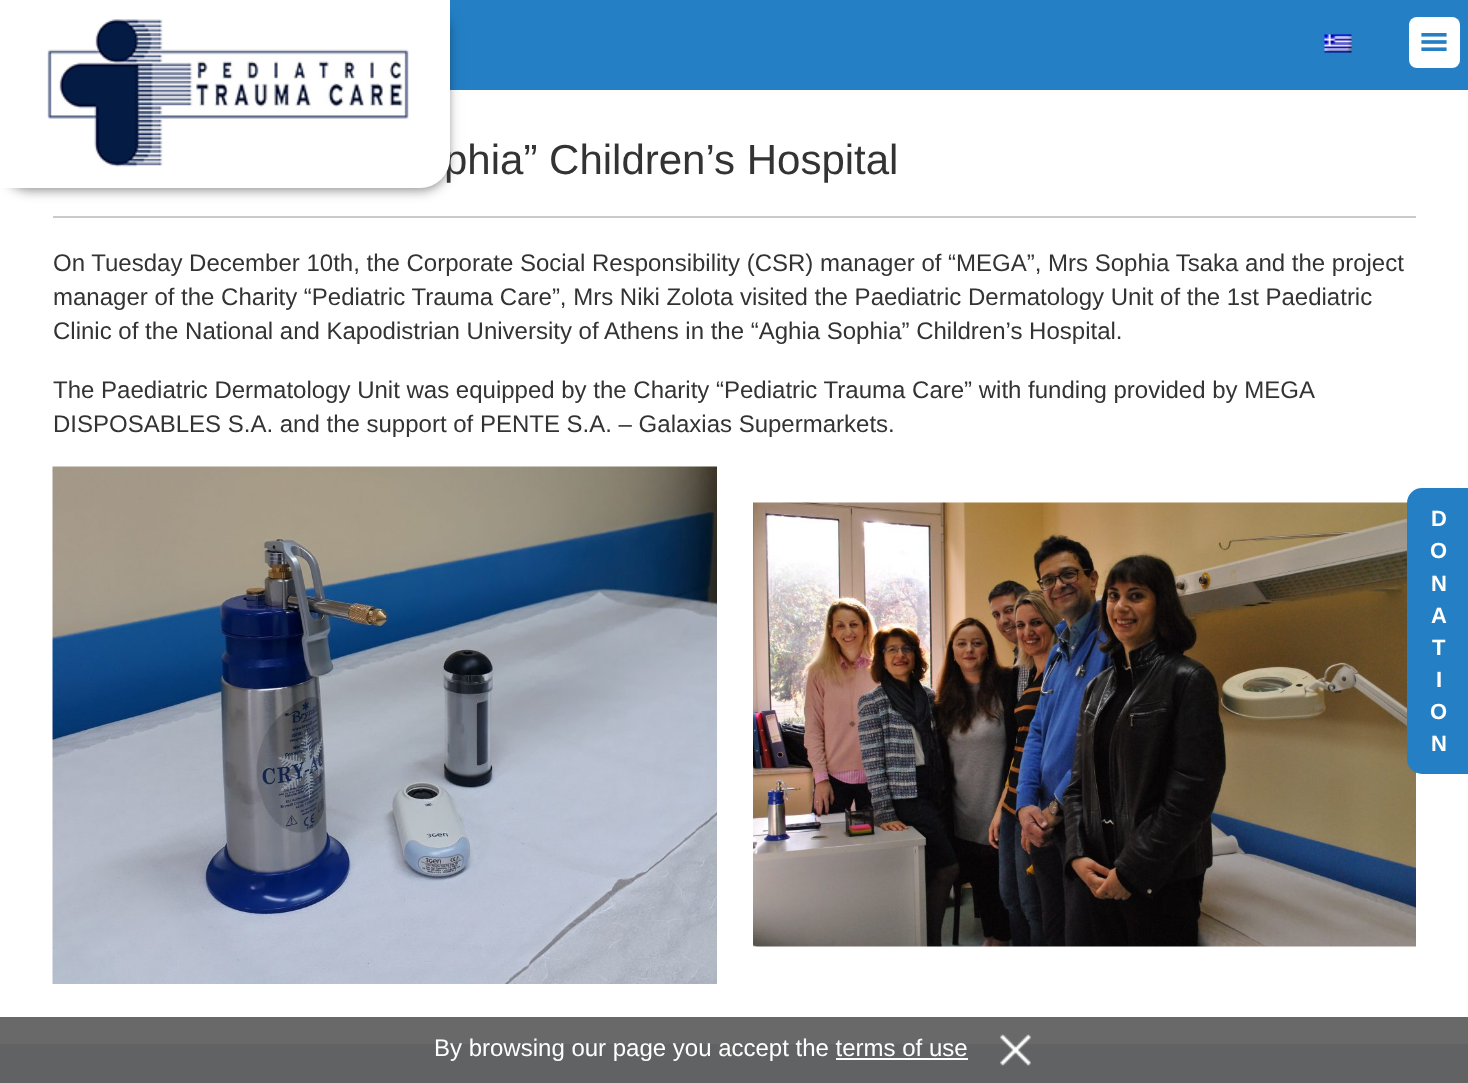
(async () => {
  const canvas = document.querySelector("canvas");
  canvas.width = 1468;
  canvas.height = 1083;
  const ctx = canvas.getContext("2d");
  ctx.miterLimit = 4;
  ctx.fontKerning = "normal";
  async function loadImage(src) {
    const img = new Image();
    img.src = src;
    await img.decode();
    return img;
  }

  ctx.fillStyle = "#ffffff";
  ctx.fillRect(0, 0, 1468, 1083);
  ctx.fillStyle = "#696969";
  ctx.fillRect(0, 1017, 1468, 27);
  ctx.fillStyle = "#247fc5";
  ctx.fillRect(450, 0, 1018, 90);
  ctx.fillStyle = "rgba(0, 0, 0, 0.2)";
  ctx.filter = "blur(3px)";
  ctx.beginPath();
  ctx.roundRect(2, 5, 447, 184, 29);
  ctx.fill();
  ctx.filter = "none";
  ctx.fillStyle = "rgba(0, 0, 0, 0.12)";
  ctx.filter = "blur(7.5px)";
  ctx.beginPath();
  ctx.roundRect(0, 2, 450, 187, 30);
  ctx.fill();
  ctx.filter = "none";
  ctx.fillStyle = "rgba(0, 0, 0, 0.14)";
  ctx.filter = "blur(4px)";
  ctx.beginPath();
  ctx.roundRect(0, 6, 450, 188, 30);
  ctx.fill();
  ctx.filter = "none";
  ctx.drawImage(await loadImage("img/2.png"), 1324, 34, 28, 19);
  ctx.fillStyle = "#ffffff";
  ctx.beginPath();
  ctx.roundRect(1409, 17, 51, 51, 8);
  ctx.fill();
  ctx.drawImage(await loadImage("img/3.png"), 1421, 33, 26, 18);
  ctx.fillStyle = "#cacaca";
  ctx.fillRect(53, 216, 1363, 2);
  ctx.drawImage(await loadImage("img/4.png"), 52, 466, 665, 518);
  ctx.drawImage(await loadImage("img/5.png"), 753, 502, 663, 445);
  ctx.fillStyle = "#616263";
  ctx.fillRect(0, 1044, 1468, 39);
  ctx.fillStyle = "#247fc5";
  ctx.beginPath();
  ctx.roundRect(1407, 488, 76, 286, 15);
  ctx.fill();
  ctx.fillStyle = "#ffffff";
  ctx.fillRect(836, 1058, 132, 2);
  ctx.drawImage(await loadImage("img/6.png"), 1000, 1034, 31, 32);
  ctx.font = "42px Liberation Sans";
  ctx.fillStyle = "#333333";
  ctx.fillText("phia” Children’s Hospital", 444, 174);
  ctx.fillStyle = "#ffffff";
  ctx.beginPath();
  ctx.roundRect(0, 0, 450, 188, [0, 0, 30, 0]);
  ctx.fill();
  ctx.drawImage(await loadImage("img/1.png"), 47, 19, 362, 148);
  ctx.font = "24px Liberation Sans";
  ctx.fillStyle = "#333333";
  for (const [text, x, y] of [
    ["On Tuesday December 10th, the Corporate Social Responsibility (CSR) manager of “MEGA”, Mrs Sophia Tsaka and the project", 53, 271],
    ["manager of the Charity “Pediatric Trauma Care”, Mrs Niki Zolota visited the Paediatric Dermatology Unit of the 1st Paediatric", 53, 305],
    ["Clinic of the National and Kapodistrian University of Athens in the “Aghia Sophia” Children’s Hospital.", 53, 339],
    ["The Paediatric Dermatology Unit was equipped by the Charity “Pediatric Trauma Care” with funding provided by MEGA", 53, 398],
    ["DISPOSABLES S.A. and the support of PENTE S.A. – Galaxias Supermarkets.", 53, 432],
  ]) {
    ctx.fillText(text, x, y);
  }
  ctx.letterSpacing = "6px";
  ctx.font = "bold 22px Liberation Sans";
  ctx.fillStyle = "#ffffff";
  for (const [text, x, y] of [
    ["D", 1431, 526],
    ["O", 1430, 558],
    ["N", 1431, 591],
    ["A", 1431, 623],
    ["T", 1432, 655],
    ["I", 1436, 687],
    ["O", 1430, 719],
    ["N", 1431, 751],
  ]) {
    ctx.fillText(text, x, y);
  }
  ctx.letterSpacing = "0px";
  ctx.font = "24px Liberation Sans";
  ctx.fillText("By browsing our page you accept the terms of use", 434, 1056);
})();
